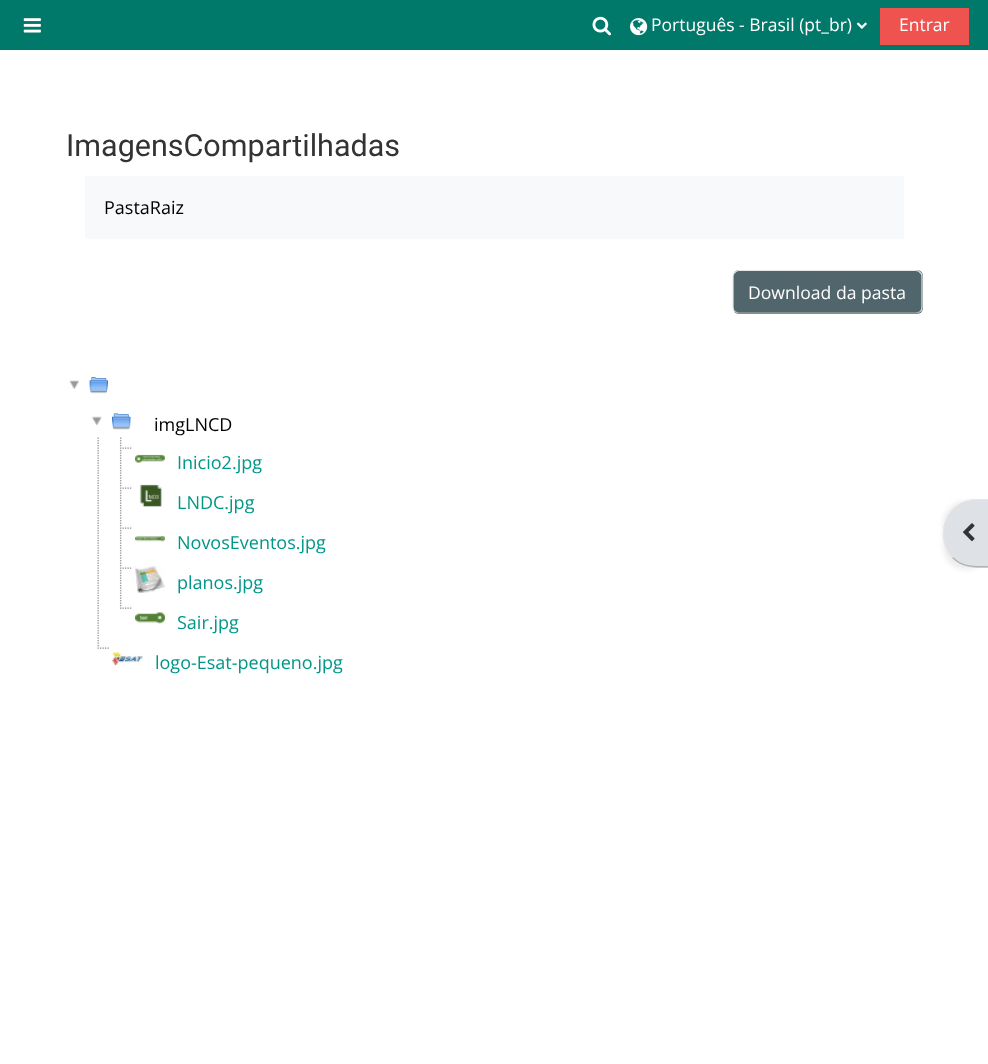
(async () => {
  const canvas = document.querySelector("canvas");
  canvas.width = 988;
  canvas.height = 1064;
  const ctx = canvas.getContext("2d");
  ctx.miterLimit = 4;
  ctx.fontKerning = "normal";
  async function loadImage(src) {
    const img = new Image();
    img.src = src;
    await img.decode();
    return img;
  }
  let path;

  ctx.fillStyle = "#ffffff";
  ctx.fillRect(0, 0, 988, 1064);
  ctx.fillStyle = "#00796b";
  ctx.fillRect(0, 0, 988, 50);
  ctx.drawImage(await loadImage("img/1.png"), 23, 18, 18, 15);
  ctx.drawImage(await loadImage("img/2.png"), 592, 16, 19, 20);
  ctx.drawImage(await loadImage("img/3.png"), 630, 18, 18, 18);
  ctx.drawImage(await loadImage("img/4.png"), 856, 22, 11, 7);
  ctx.fillStyle = "#ef5350";
  ctx.fillRect(880, 8, 89, 37);
  ctx.fillStyle = "#f8f9fa";
  ctx.fillRect(85, 176, 819, 63);
  ctx.fillStyle = "#51666c";
  ctx.beginPath();
  ctx.roundRect(733, 270, 190, 44, 6);
  ctx.fill();
  path = new Path2D("M920 311.5C919 312.5 917.5 313 916 313H739C737.5 313 736 312.5 735 311.5");
  ctx.strokeStyle = "#b3b3b3";
  ctx.lineWidth = 1.2;
  ctx.stroke(path);
  path = new Path2D("M735 311.5C733.5 310.5 733 309 733 307.5V276C733 275 733.5 273.5 735 272.5C736 271 737.5 270.5 739 270.5H916C917.5 270.5 919 271 920 272.5C921.5 273.5 922 275 922 276V307.5C922 309 921.5 310.5 920 311.5");
  ctx.strokeStyle = "#e6e6e6";
  ctx.stroke(path);
  ctx.drawImage(await loadImage("img/5.png"), 69, 380, 10, 9);
  ctx.drawImage(await loadImage("img/6.png"), 89, 377, 19, 17);
  ctx.drawImage(await loadImage("img/7.png"), 92, 416, 10, 10);
  ctx.drawImage(await loadImage("img/8.png"), 112, 413, 19, 17);
  ctx.drawImage(await loadImage("img/9.png"), 97, 437, 2, 40);
  ctx.drawImage(await loadImage("img/10.png"), 119, 437, 13, 40);
  ctx.drawImage(await loadImage("img/11.png"), 135, 454, 30, 9);
  ctx.drawImage(await loadImage("img/9.png"), 97, 477, 2, 40);
  ctx.drawImage(await loadImage("img/10.png"), 119, 477, 13, 40);
  ctx.drawImage(await loadImage("img/12.png"), 139, 484, 23, 23);
  ctx.drawImage(await loadImage("img/9.png"), 97, 517, 2, 40);
  ctx.drawImage(await loadImage("img/10.png"), 119, 517, 13, 40);
  ctx.drawImage(await loadImage("img/13.png"), 135, 536, 30, 6);
  ctx.drawImage(await loadImage("img/14.png"), 97, 557, 2, 40);
  ctx.drawImage(await loadImage("img/15.png"), 119, 557, 13, 40);
  ctx.drawImage(await loadImage("img/16.png"), 135, 566, 30, 27);
  ctx.drawImage(await loadImage("img/9.png"), 97, 597, 2, 40);
  ctx.drawImage(await loadImage("img/17.png"), 119, 597, 13, 12);
  ctx.drawImage(await loadImage("img/18.png"), 135, 612, 30, 12);
  ctx.drawImage(await loadImage("img/19.png"), 97, 637, 12, 12);
  ctx.drawImage(await loadImage("img/20.png"), 112, 652, 31, 14);
  ctx.fillStyle = "rgba(0, 0, 0, 0.07)";
  ctx.filter = "blur(2.5px)";
  ctx.beginPath();
  ctx.roundRect(943, 501, 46, 69, 34);
  ctx.fill();
  ctx.filter = "none";
  ctx.fillStyle = "#dee2e6";
  path = new Path2D("M977 499H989V568H977C958 568 943 553 943 534V533C943 514 958 499 977 499Z");
  ctx.fill(path);
  ctx.fillStyle = "#e6e6e6";
  path = new Path2D("M977 499C967 499 958.5 503 952.5 509L953.5 509.5C963.5 499.5 974.5 500 987.5 500L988.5 499Z");
  ctx.fill(path);
  ctx.fillStyle = "#b3b3b3";
  path = new Path2D("M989 567.5C974.5 567.5 963 568.5 952 558L953 557C963.5 567 974 566 987.5 566Z");
  ctx.fill(path);
  ctx.fillStyle = "#e6e6e6";
  path = new Path2D("M953 509C940 522 939 544 952 558L953 557C940 544 941 522 953 510Z");
  ctx.fill(path);
  ctx.drawImage(await loadImage("img/21.png"), 963, 523, 12, 19);
  ctx.font = "17.5px Open Sans";
  ctx.fillStyle = "#ffffff";
  ctx.fillText("Português - Brasil (pt_br)", 651, 31);
  ctx.fillText("Entrar", 899, 31);
  ctx.font = "30.5px Roboto";
  ctx.fillStyle = "#333333";
  ctx.fillText("ImagensCompartilhadas", 66, 156);
  ctx.font = "18px Open Sans";
  ctx.fillStyle = "#000000";
  ctx.fillText("PastaRaiz", 104, 214);
  ctx.font = "17.6px Open Sans";
  ctx.fillStyle = "#ffffff";
  ctx.fillText("Download da pasta", 748, 299);
  ctx.font = "18px Open Sans";
  ctx.fillStyle = "#000000";
  ctx.fillText("imgLNCD", 154, 431);
  ctx.fillStyle = "#009688";
  for (const [text, x, y] of [
    ["Inicio2.jpg", 177, 469],
    ["LNDC.jpg", 177, 509],
    ["NovosEventos.jpg", 177, 549],
    ["planos.jpg", 177, 589],
    ["Sair.jpg", 177, 629],
    ["logo-Esat-pequeno.jpg", 155, 669],
  ]) {
    ctx.fillText(text, x, y);
  }
})();
